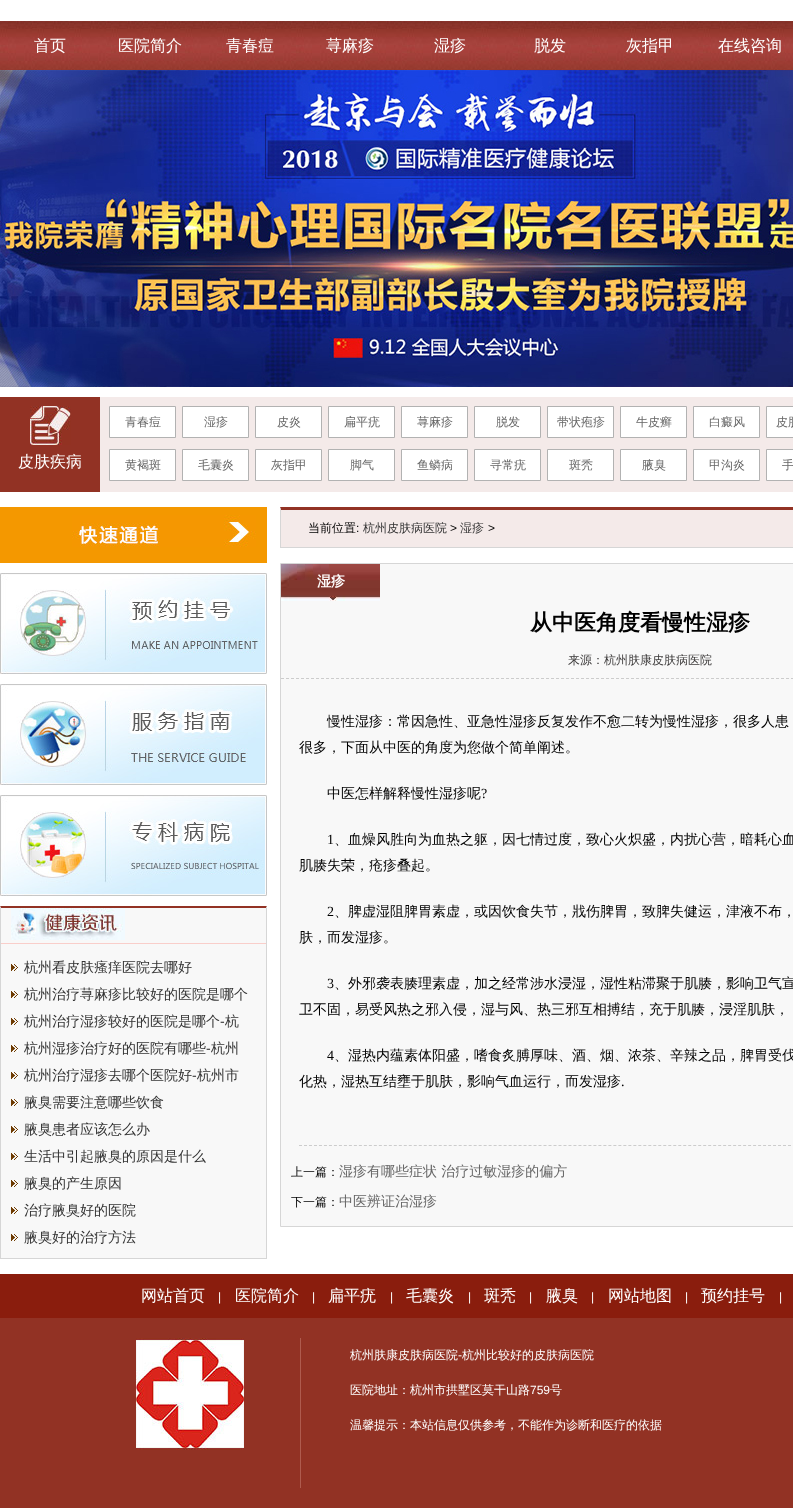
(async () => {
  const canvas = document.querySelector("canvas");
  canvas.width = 793;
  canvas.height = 1508;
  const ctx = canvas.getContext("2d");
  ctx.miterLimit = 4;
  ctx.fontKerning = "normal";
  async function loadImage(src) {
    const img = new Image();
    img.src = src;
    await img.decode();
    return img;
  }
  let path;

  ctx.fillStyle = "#ffffff";
  ctx.fillRect(0, 0, 793, 1508);
  ctx.drawImage(await loadImage("img/1.png"), 0, 21, 793, 49);
  ctx.drawImage(await loadImage("img/2.png"), 0, 70, 793, 317);
  ctx.fillStyle = "#923224";
  ctx.fillRect(0, 397, 100, 95);
  ctx.drawImage(await loadImage("img/3.png"), 30, 406, 41, 39);
  ctx.fillStyle = "#f4eae9";
  ctx.fillRect(100, 397, 693, 95);
  ctx.fillStyle = "#ffffff";
  ctx.beginPath();
  ctx.rect(109.5, 406.5, 66, 31);
  ctx.fill();
  ctx.strokeStyle = "#b2b2b2";
  ctx.stroke();
  ctx.beginPath();
  ctx.rect(182.5, 406.5, 66, 31);
  ctx.fill();
  ctx.stroke();
  ctx.beginPath();
  ctx.rect(255.5, 406.5, 66, 31);
  ctx.fill();
  ctx.stroke();
  ctx.beginPath();
  ctx.rect(328.5, 406.5, 66, 31);
  ctx.fill();
  ctx.stroke();
  ctx.beginPath();
  ctx.rect(401.5, 406.5, 66, 31);
  ctx.fill();
  ctx.stroke();
  ctx.beginPath();
  ctx.rect(474.5, 406.5, 66, 31);
  ctx.fill();
  ctx.stroke();
  ctx.beginPath();
  ctx.rect(547.5, 406.5, 66, 31);
  ctx.fill();
  ctx.stroke();
  ctx.beginPath();
  ctx.rect(620.5, 406.5, 66, 31);
  ctx.fill();
  ctx.stroke();
  ctx.beginPath();
  ctx.rect(693.5, 406.5, 66, 31);
  ctx.fill();
  ctx.stroke();
  ctx.beginPath();
  ctx.rect(766.5, 406.5, 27, 31);
  ctx.fill();
  ctx.stroke();
  ctx.beginPath();
  ctx.rect(109.5, 449.5, 66, 31);
  ctx.fill();
  ctx.stroke();
  ctx.beginPath();
  ctx.rect(182.5, 449.5, 66, 31);
  ctx.fill();
  ctx.stroke();
  ctx.beginPath();
  ctx.rect(255.5, 449.5, 66, 31);
  ctx.fill();
  ctx.stroke();
  ctx.beginPath();
  ctx.rect(328.5, 449.5, 66, 31);
  ctx.fill();
  ctx.stroke();
  ctx.beginPath();
  ctx.rect(401.5, 449.5, 66, 31);
  ctx.fill();
  ctx.stroke();
  ctx.beginPath();
  ctx.rect(474.5, 449.5, 66, 31);
  ctx.fill();
  ctx.stroke();
  ctx.beginPath();
  ctx.rect(547.5, 449.5, 66, 31);
  ctx.fill();
  ctx.stroke();
  ctx.beginPath();
  ctx.rect(620.5, 449.5, 66, 31);
  ctx.fill();
  ctx.stroke();
  ctx.beginPath();
  ctx.rect(693.5, 449.5, 66, 31);
  ctx.fill();
  ctx.stroke();
  ctx.beginPath();
  ctx.rect(766.5, 449.5, 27, 31);
  ctx.fill();
  ctx.stroke();
  ctx.fillStyle = "#f49800";
  ctx.fillRect(0, 507, 267, 56);
  ctx.drawImage(await loadImage("img/4.png"), 72, 515, 184, 32);
  ctx.drawImage(await loadImage("img/5.png"), 0, 573, 267, 101);
  ctx.drawImage(await loadImage("img/6.png"), 0, 684, 267, 101);
  ctx.drawImage(await loadImage("img/7.png"), 0, 795, 267, 101);
  ctx.fillStyle = "#f8f8f8";
  ctx.fillRect(1, 908, 265, 350);
  ctx.fillStyle = "#923224";
  path = new Path2D("M0 906H267L266 908H1Z");
  ctx.fill(path);
  ctx.fillStyle = "#d6d6d6";
  path = new Path2D("M267 906V1259L266 1258V908Z");
  ctx.fill(path);
  ctx.fillRect(0, 1258, 267, 1);
  path = new Path2D("M0 1259V906L1 908V1258Z");
  ctx.fill(path);
  ctx.fillStyle = "#f9ceca";
  ctx.fillRect(1, 943, 265, 1);
  ctx.drawImage(await loadImage("img/8.png"), 11, 908, 114, 32);
  ctx.drawImage(await loadImage("img/9.png"), 11, 964, 7, 7);
  ctx.drawImage(await loadImage("img/9.png"), 11, 991, 7, 7);
  ctx.drawImage(await loadImage("img/9.png"), 11, 1018, 7, 7);
  ctx.drawImage(await loadImage("img/9.png"), 11, 1045, 7, 7);
  ctx.drawImage(await loadImage("img/9.png"), 11, 1072, 7, 7);
  ctx.drawImage(await loadImage("img/9.png"), 11, 1099, 7, 7);
  ctx.drawImage(await loadImage("img/9.png"), 11, 1126, 7, 7);
  ctx.drawImage(await loadImage("img/9.png"), 11, 1153, 7, 7);
  ctx.drawImage(await loadImage("img/9.png"), 11, 1180, 7, 7);
  ctx.drawImage(await loadImage("img/9.png"), 11, 1207, 7, 7);
  ctx.drawImage(await loadImage("img/9.png"), 11, 1234, 7, 7);
  ctx.fillStyle = "#f4eae9";
  ctx.fillRect(281, 510, 512, 37);
  ctx.fillStyle = "#923224";
  path = new Path2D("M280 507H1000L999 510H281Z");
  ctx.fill(path);
  ctx.fillStyle = "#d6d6d6";
  ctx.fillRect(280, 547, 513, 1);
  path = new Path2D("M280 548V507L281 510V547Z");
  ctx.fill(path);
  ctx.fillStyle = "#f8f8f8";
  ctx.beginPath();
  ctx.rect(280.5, 563.5, 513, 663);
  ctx.fill();
  ctx.strokeStyle = "#d6d6d6";
  ctx.stroke();
  ctx.drawImage(await loadImage("img/10.png"), 281, 564, 99, 37);
  path = new Path2D("M281 678.5H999");
  ctx.strokeStyle = "#cccccc";
  ctx.setLineDash([3, 2]);
  ctx.stroke(path);
  path = new Path2D("M299 1145.5H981");
  ctx.setLineDash([3, 1.99]);
  ctx.stroke(path);
  for (const [x, y, w, h, color] of [
    [0, 1274, 793, 44, "#8a1d0d"],
    [0, 1318, 793, 190, "#923224"],
    [300, 1338, 1, 150, "#af5b4e"],
  ]) {
    ctx.fillStyle = color;
    ctx.fillRect(x, y, w, h);
  }
  ctx.drawImage(await loadImage("img/11.png"), 136, 1338, 108, 112);
  ctx.font = "500 16px WenQuanYi Zen Hei";
  ctx.fillStyle = "#ffffff";
  for (const [text, x, y] of [
    ["首页", 34, 51],
    ["医院简介", 118, 51],
    ["青春痘", 226, 51],
    ["荨麻疹", 326, 51],
    ["湿疹", 434, 51],
    ["脱发", 534, 51],
    ["灰指甲", 626, 51],
    ["在线咨询", 718, 51],
    ["皮肤疾病", 18, 467],
  ]) {
    ctx.fillText(text, x, y);
  }
  ctx.font = "500 12px WenQuanYi Zen Hei";
  ctx.fillStyle = "#666666";
  for (const [text, x, y] of [
    ["青春痘", 125, 426],
    ["湿疹", 204, 426],
    ["皮炎", 277, 426],
    ["扁平疣", 344, 426],
    ["荨麻疹", 417, 426],
    ["脱发", 496, 426],
    ["带状疱疹", 557, 426],
    ["牛皮癣", 636, 426],
    ["白癜风", 709, 426],
    ["皮肤", 776, 426],
    ["黄褐斑", 125, 469],
    ["毛囊炎", 198, 469],
    ["灰指甲", 271, 469],
    ["脚气", 350, 469],
    ["鱼鳞病", 417, 469],
    ["寻常疣", 490, 469],
    ["斑秃", 569, 469],
    ["腋臭", 642, 469],
    ["甲沟炎", 709, 469],
    ["手", 782, 469],
  ]) {
    ctx.fillText(text, x, y);
  }
  ctx.font = "500 14px WenQuanYi Zen Hei";
  ctx.fillStyle = "#333333";
  for (const [text, x, y] of [
    ["杭州看皮肤瘙痒医院去哪好", 24, 972],
    ["杭州治疗荨麻疹比较好的医院是哪个", 24, 999],
    ["杭州治疗湿疹较好的医院是哪个", 24, 1026],
  ]) {
    ctx.fillText(text, x, y);
  }
  ctx.font = "14px Liberation Sans";
  ctx.fillText("-", 220, 1026);
  ctx.font = "500 14px WenQuanYi Zen Hei";
  ctx.fillText("杭", 225, 1026);
  ctx.fillText("杭州湿疹治疗好的医院有哪些", 24, 1053);
  ctx.font = "14px Liberation Sans";
  ctx.fillText("-", 206, 1053);
  ctx.font = "500 14px WenQuanYi Zen Hei";
  ctx.fillText("杭州", 211, 1053);
  ctx.fillText("杭州治疗湿疹去哪个医院好", 24, 1080);
  ctx.font = "14px Liberation Sans";
  ctx.fillText("-", 192, 1080);
  ctx.font = "500 14px WenQuanYi Zen Hei";
  for (const [text, x, y] of [
    ["杭州市", 197, 1080],
    ["腋臭需要注意哪些饮食", 24, 1107],
    ["腋臭患者应该怎么办", 24, 1134],
    ["生活中引起腋臭的原因是什么", 24, 1161],
    ["腋臭的产生原因", 24, 1188],
    ["治疗腋臭好的医院", 24, 1215],
    ["腋臭好的治疗方法", 24, 1242],
  ]) {
    ctx.fillText(text, x, y);
  }
  ctx.font = "500 12px WenQuanYi Zen Hei";
  ctx.fillStyle = "#000000";
  ctx.fillText("当前位置", 308, 532);
  ctx.font = "12px Liberation Sans";
  ctx.fillText(":", 356, 532);
  ctx.font = "500 12px WenQuanYi Zen Hei";
  ctx.fillStyle = "#333333";
  ctx.fillText("杭州皮肤病医院", 363, 532);
  ctx.font = "12px Liberation Sans";
  ctx.fillStyle = "#000000";
  ctx.fillText(">", 450, 532);
  ctx.font = "500 12px WenQuanYi Zen Hei";
  ctx.fillStyle = "#333333";
  ctx.fillText("湿疹", 460, 532);
  ctx.font = "12px Liberation Sans";
  ctx.fillStyle = "#000000";
  ctx.fillText(">", 488, 532);
  ctx.font = "bold 14px WenQuanYi Zen Hei";
  ctx.fillStyle = "#ffffff";
  ctx.fillText("湿疹", 317, 586);
  ctx.font = "bold 22px WenQuanYi Zen Hei";
  ctx.fillStyle = "#000000";
  ctx.fillText("从中医角度看慢性湿疹", 530, 630);
  ctx.font = "500 12px WenQuanYi Zen Hei";
  ctx.fillStyle = "#3c3a3a";
  ctx.fillText("来源：杭州肤康皮肤病医院", 568, 664);
  ctx.font = "500 14px WenQuanYi Zen Hei";
  ctx.fillStyle = "#000000";
  for (const [text, x, y] of [
    ["慢性湿疹：常因急性、亚急性湿疹反复发作不愈二转为慢性湿疹，很多人患", 327, 726],
    ["很多，下面从中医的角度为您做个简单阐述。", 299, 752],
    ["中医怎样解释慢性湿疹呢", 327, 798],
  ]) {
    ctx.fillText(text, x, y);
  }
  ctx.font = "14px Liberation Serif";
  ctx.fillText("?", 481, 798);
  ctx.fillText("1", 327, 844);
  ctx.font = "500 14px WenQuanYi Zen Hei";
  ctx.fillText("、血燥风胜向为血热之躯，因七情过度，致心火炽盛，内扰心营，暗耗心血", 334, 844);
  ctx.fillText("肌腠失荣，疮疹叠起。", 299, 870);
  ctx.font = "14px Liberation Serif";
  ctx.fillText("2", 327, 916);
  ctx.font = "500 14px WenQuanYi Zen Hei";
  ctx.fillText("、脾虚湿阻脾胃素虚，或因饮食失节，戕伤脾胃，致脾失健运，津液不布，", 334, 916);
  ctx.fillText("肤，而发湿疹。", 299, 942);
  ctx.font = "14px Liberation Serif";
  ctx.fillText("3", 327, 988);
  ctx.font = "500 14px WenQuanYi Zen Hei";
  ctx.fillText("、外邪袭表腠理素虚，加之经常涉水浸湿，湿性粘滞聚于肌腠，影响卫气宣", 334, 988);
  ctx.fillText("卫不固，易受风热之邪入侵，湿与风、热三邪互相搏结，充于肌腠，浸淫肌肤，", 299, 1014);
  ctx.font = "14px Liberation Serif";
  ctx.fillText("4", 327, 1060);
  ctx.font = "500 14px WenQuanYi Zen Hei";
  ctx.fillText("、湿热内蕴素体阳盛，嗜食炙膊厚味、酒、烟、浓茶、辛辣之品，脾胃受伐", 334, 1060);
  ctx.fillText("化热，湿热互结壅于肌肤，影响气血运行，而发湿疹", 299, 1086);
  ctx.font = "14px Liberation Serif";
  ctx.fillText(".", 621, 1086);
  ctx.font = "500 12px WenQuanYi Zen Hei";
  ctx.fillText("上一篇：", 291, 1176);
  ctx.font = "500 14px WenQuanYi Zen Hei";
  ctx.fillStyle = "#666666";
  ctx.fillText("湿疹有哪些症状 治疗过敏湿疹的偏方", 339, 1176);
  ctx.font = "500 12px WenQuanYi Zen Hei";
  ctx.fillStyle = "#000000";
  ctx.fillText("下一篇：", 291, 1206);
  ctx.font = "500 14px WenQuanYi Zen Hei";
  ctx.fillStyle = "#666666";
  ctx.fillText("中医辨证治湿疹", 339, 1206);
  ctx.font = "500 16px WenQuanYi Zen Hei";
  ctx.fillStyle = "#ffffff";
  ctx.fillText("网站首页", 141, 1301);
  ctx.font = "12px Liberation Sans";
  ctx.fillText("|", 218, 1301);
  ctx.font = "500 16px WenQuanYi Zen Hei";
  ctx.fillText("医院简介", 235, 1301);
  ctx.font = "12px Liberation Sans";
  ctx.fillText("|", 312, 1301);
  ctx.font = "500 16px WenQuanYi Zen Hei";
  ctx.fillText("扁平疣", 328, 1301);
  ctx.font = "12px Liberation Sans";
  ctx.fillText("|", 390, 1301);
  ctx.font = "500 16px WenQuanYi Zen Hei";
  ctx.fillText("毛囊炎", 406, 1301);
  ctx.font = "12px Liberation Sans";
  ctx.fillText("|", 468, 1301);
  ctx.font = "500 16px WenQuanYi Zen Hei";
  ctx.fillText("斑秃", 484, 1301);
  ctx.font = "12px Liberation Sans";
  ctx.fillText("|", 529, 1301);
  ctx.font = "500 16px WenQuanYi Zen Hei";
  ctx.fillText("腋臭", 546, 1301);
  ctx.font = "12px Liberation Sans";
  ctx.fillText("|", 591, 1301);
  ctx.font = "500 16px WenQuanYi Zen Hei";
  ctx.fillText("网站地图", 608, 1301);
  ctx.font = "12px Liberation Sans";
  ctx.fillText("|", 685, 1301);
  ctx.font = "500 16px WenQuanYi Zen Hei";
  ctx.fillText("预约挂号", 701, 1301);
  ctx.font = "12px Liberation Sans";
  ctx.fillText("|", 779, 1301);
  ctx.font = "500 12px WenQuanYi Zen Hei";
  ctx.fillText("杭州肤康皮肤病医院", 350, 1359);
  ctx.font = "12px Liberation Sans";
  ctx.fillText("-", 458, 1359);
  ctx.font = "500 12px WenQuanYi Zen Hei";
  ctx.fillText("杭州比较好的皮肤病医院", 462, 1359);
  ctx.fillText("医院地址：杭州市拱墅区莫干山路", 350, 1394);
  ctx.font = "12px Liberation Sans";
  ctx.fillText("759", 530, 1394);
  ctx.font = "500 12px WenQuanYi Zen Hei";
  ctx.fillText("号", 550, 1394);
  ctx.fillText("温馨提示：本站信息仅供参考，不能作为诊断和医疗的依据", 350, 1429);
})();
